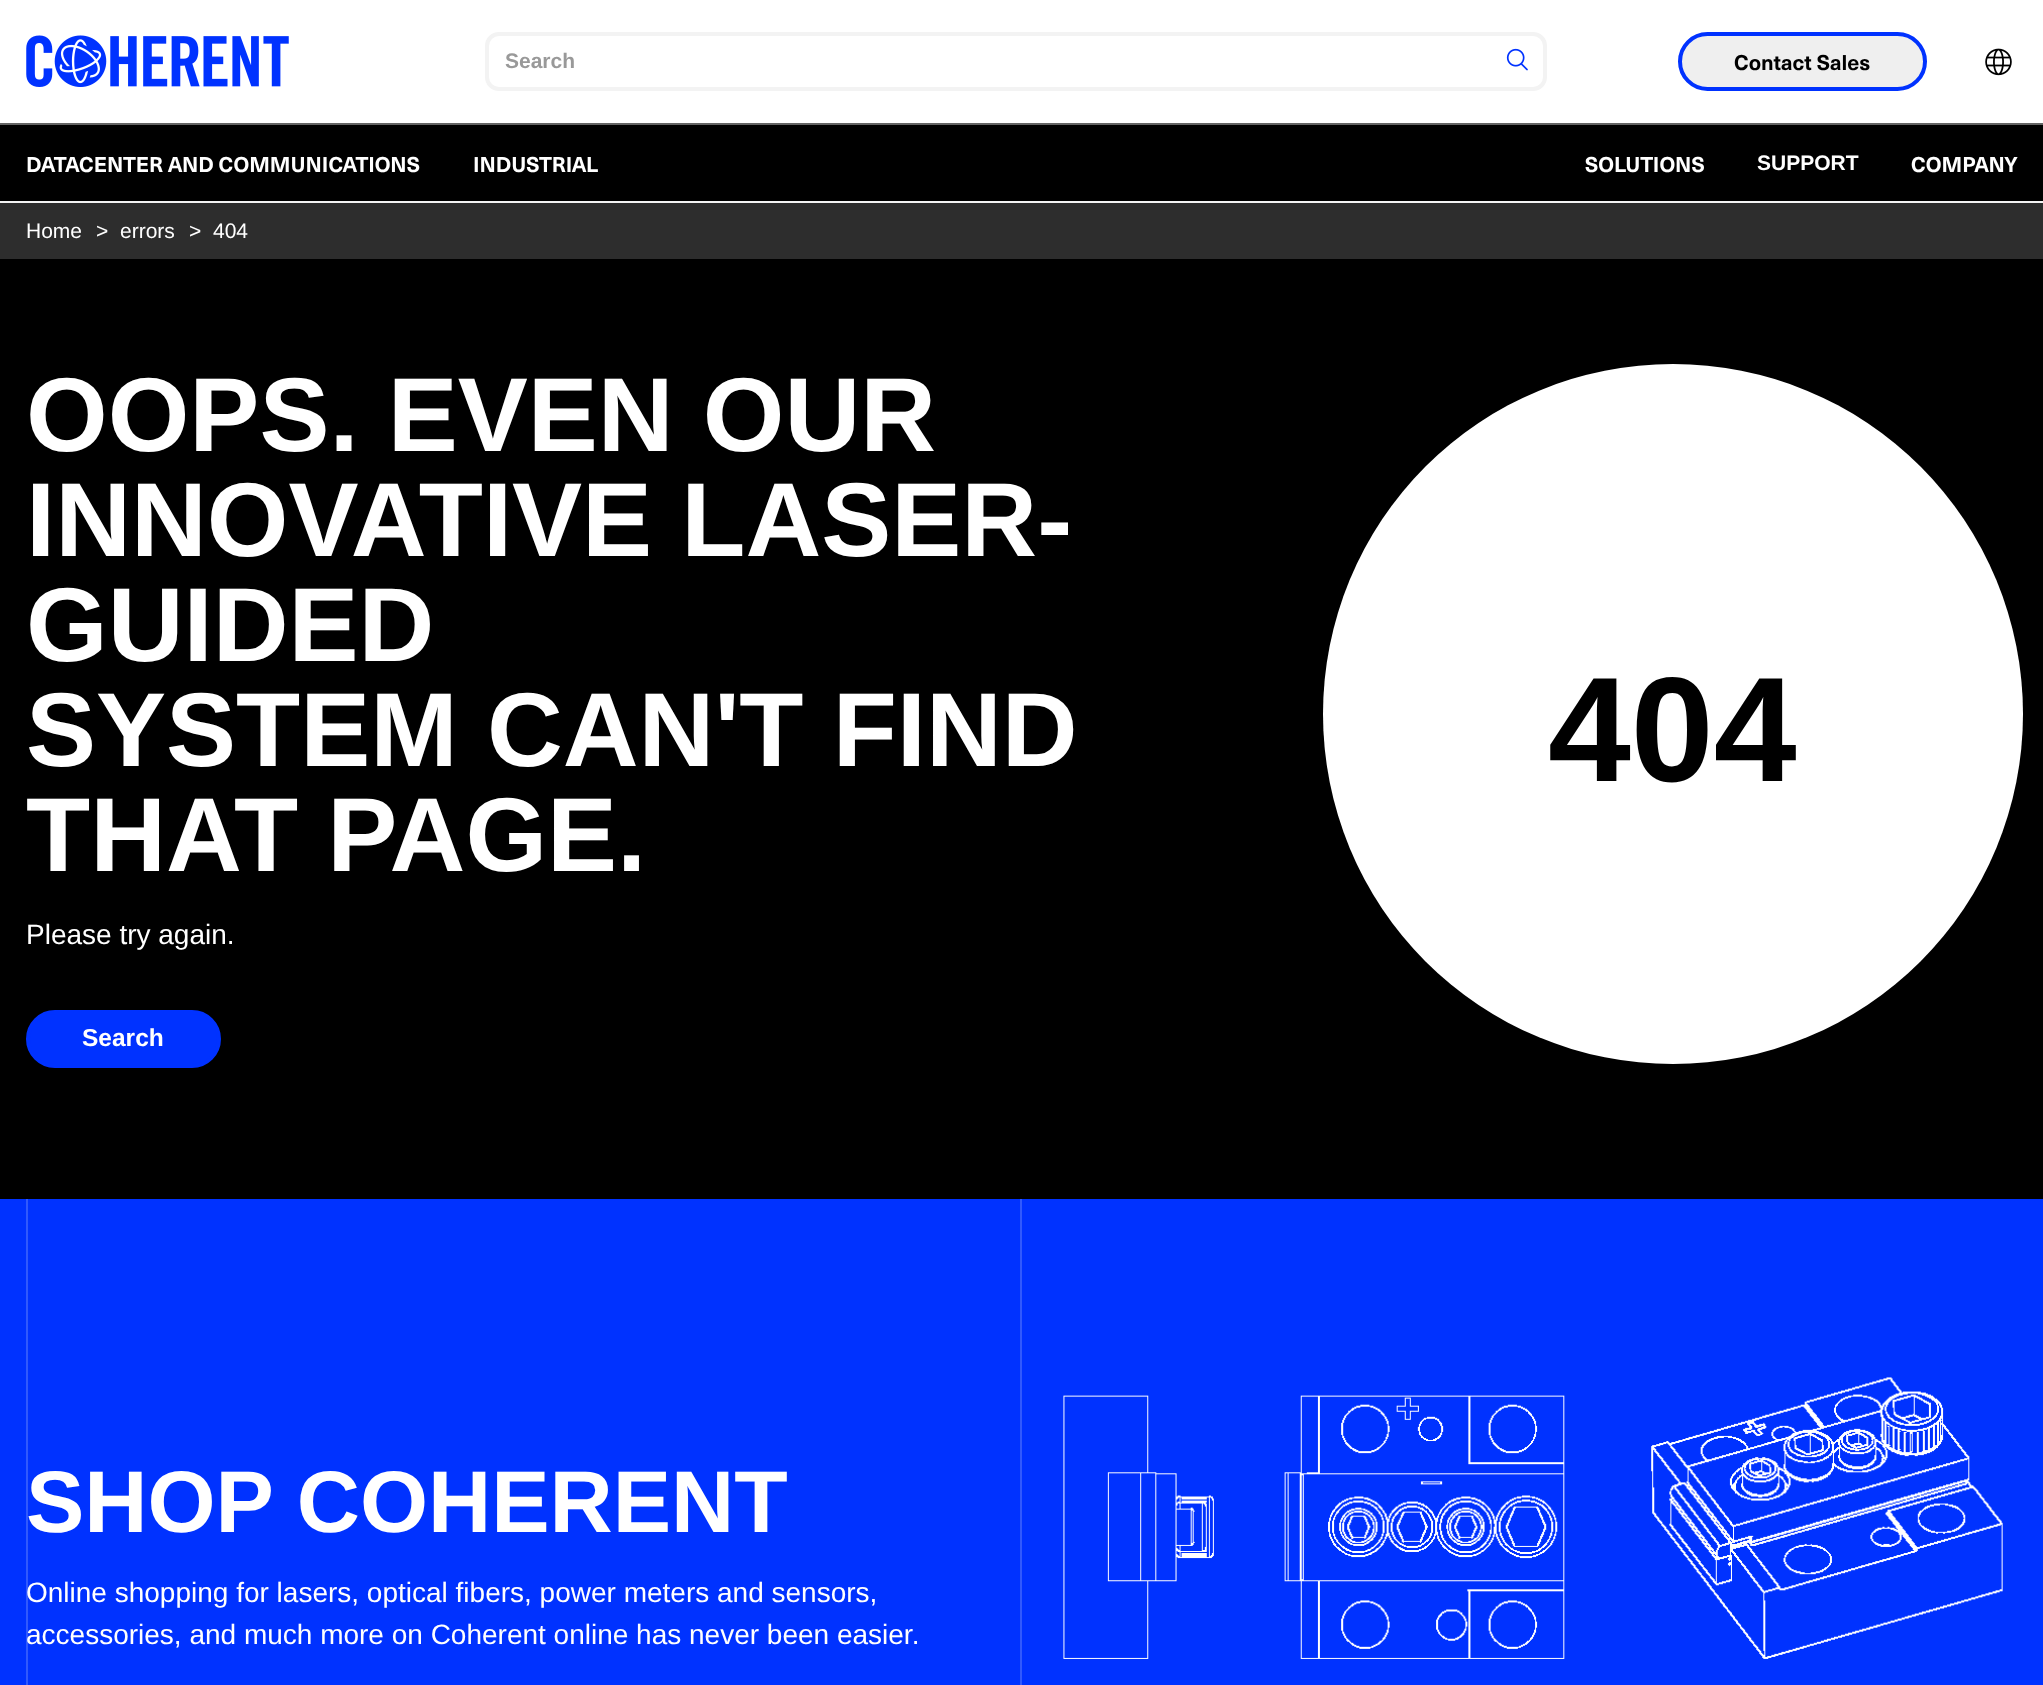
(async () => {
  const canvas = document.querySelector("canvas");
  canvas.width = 2043;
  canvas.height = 1685;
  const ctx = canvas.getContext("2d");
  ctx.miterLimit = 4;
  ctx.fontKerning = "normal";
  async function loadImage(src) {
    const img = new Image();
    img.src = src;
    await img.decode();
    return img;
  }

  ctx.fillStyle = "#ffffff";
  ctx.fillRect(0, 0, 2043, 1685);
  ctx.fillStyle = "#f3f3f3";
  ctx.fillRect(0, 201, 2043, 2);
  ctx.drawImage(await loadImage("img/1.png"), 26, 35, 263, 52);
  ctx.beginPath();
  ctx.roundRect(487, 34, 1058, 55, 12);
  ctx.strokeStyle = "#f3f3f3";
  ctx.lineWidth = 4;
  ctx.stroke();
  ctx.drawImage(await loadImage("img/2.png"), 1506, 48, 22, 23);
  ctx.fillStyle = "#efefef";
  ctx.beginPath();
  ctx.roundRect(1680, 34, 245, 55, 27.5);
  ctx.fill();
  ctx.strokeStyle = "#0032ff";
  ctx.stroke();
  ctx.drawImage(await loadImage("img/3.png"), 1985, 48, 27, 28);
  for (const [x, y, w, h, color] of [
    [0, 125, 2043, 76, "#000000"],
    [0, 123, 2043, 2, "#646464"],
    [0, 203, 2043, 56, "#2d2d2d"],
    [0, 259, 2043, 940, "#000000"],
  ]) {
    ctx.fillStyle = color;
    ctx.fillRect(x, y, w, h);
  }
  ctx.fillStyle = "#0032ff";
  ctx.beginPath();
  ctx.roundRect(28, 1012, 191, 54, 27);
  ctx.fill();
  ctx.stroke();
  ctx.fillStyle = "#ffffff";
  ctx.beginPath();
  ctx.arc(1673, 714, 350, 0, Math.PI * 2);
  ctx.fill();
  ctx.fillStyle = "#0032ff";
  ctx.fillRect(0, 1199, 2043, 486);
  ctx.fillStyle = "#3159fd";
  ctx.fillRect(1020, 1199, 2, 486);
  ctx.drawImage(await loadImage("img/4.png"), 1063, 1377, 940, 282);
  ctx.font = "bold 21px Liberation Sans";
  ctx.fillStyle = "#999999";
  ctx.fillText("Search", 505, 68);
  ctx.font = "bold 21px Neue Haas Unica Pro";
  ctx.fillStyle = "#000000";
  ctx.fillText("Contact Sales", 1734, 70);
  ctx.fillStyle = "#ffffff";
  for (const [text, x, y] of [
    ["DATACENTER AND COMMUNICATIONS", 26, 172],
    ["INDUSTRIAL", 473, 172],
    ["SOLUTIONS", 1585, 172],
  ]) {
    ctx.fillText(text, x, y);
  }
  ctx.font = "bold 21px Liberation Sans";
  ctx.fillText("SUPPORT", 1757, 170);
  ctx.font = "bold 21px Neue Haas Unica Pro";
  ctx.fillText("COMPANY", 1911, 172);
  ctx.font = "21px Liberation Sans";
  for (const [text, x, y] of [
    ["Home", 26, 238],
    [">", 96, 238],
    ["errors", 120, 238],
    [">", 189, 238],
    ["404", 213, 238],
  ]) {
    ctx.fillText(text, x, y);
  }
  ctx.font = "bold 105px Liberation Sans";
  for (const [text, x, y] of [
    ["OOPS. EVEN OUR", 26, 451],
    ["INNOVATIVE LASER-", 26, 556],
    ["GUIDED", 26, 661],
    ["SYSTEM CAN'T FIND", 26, 766],
    ["THAT PAGE.", 26, 871],
  ]) {
    ctx.fillText(text, x, y);
  }
  ctx.font = "28px Liberation Sans";
  ctx.fillText("Please try again.", 26, 944);
  ctx.font = "bold 24.5px Liberation Sans";
  ctx.fillText("Search", 82, 1046);
  ctx.font = "bold 149px Liberation Sans";
  ctx.fillStyle = "#000000";
  ctx.fillText("404", 1548, 781);
  ctx.font = "bold 87.5px Liberation Sans";
  ctx.fillStyle = "#ffffff";
  ctx.fillText("SHOP COHERENT", 26, 1532);
  ctx.font = "28px Liberation Sans";
  ctx.fillText("Online shopping for lasers, optical fibers, power meters and sensors,", 26, 1602);
  ctx.fillText("accessories, and much more on Coherent online has never been easier.", 26, 1644);
  ctx.fillStyle = "rgba(243, 243, 243, 0.2)";
  ctx.fillRect(26, 1199, 2, 486);
})();
